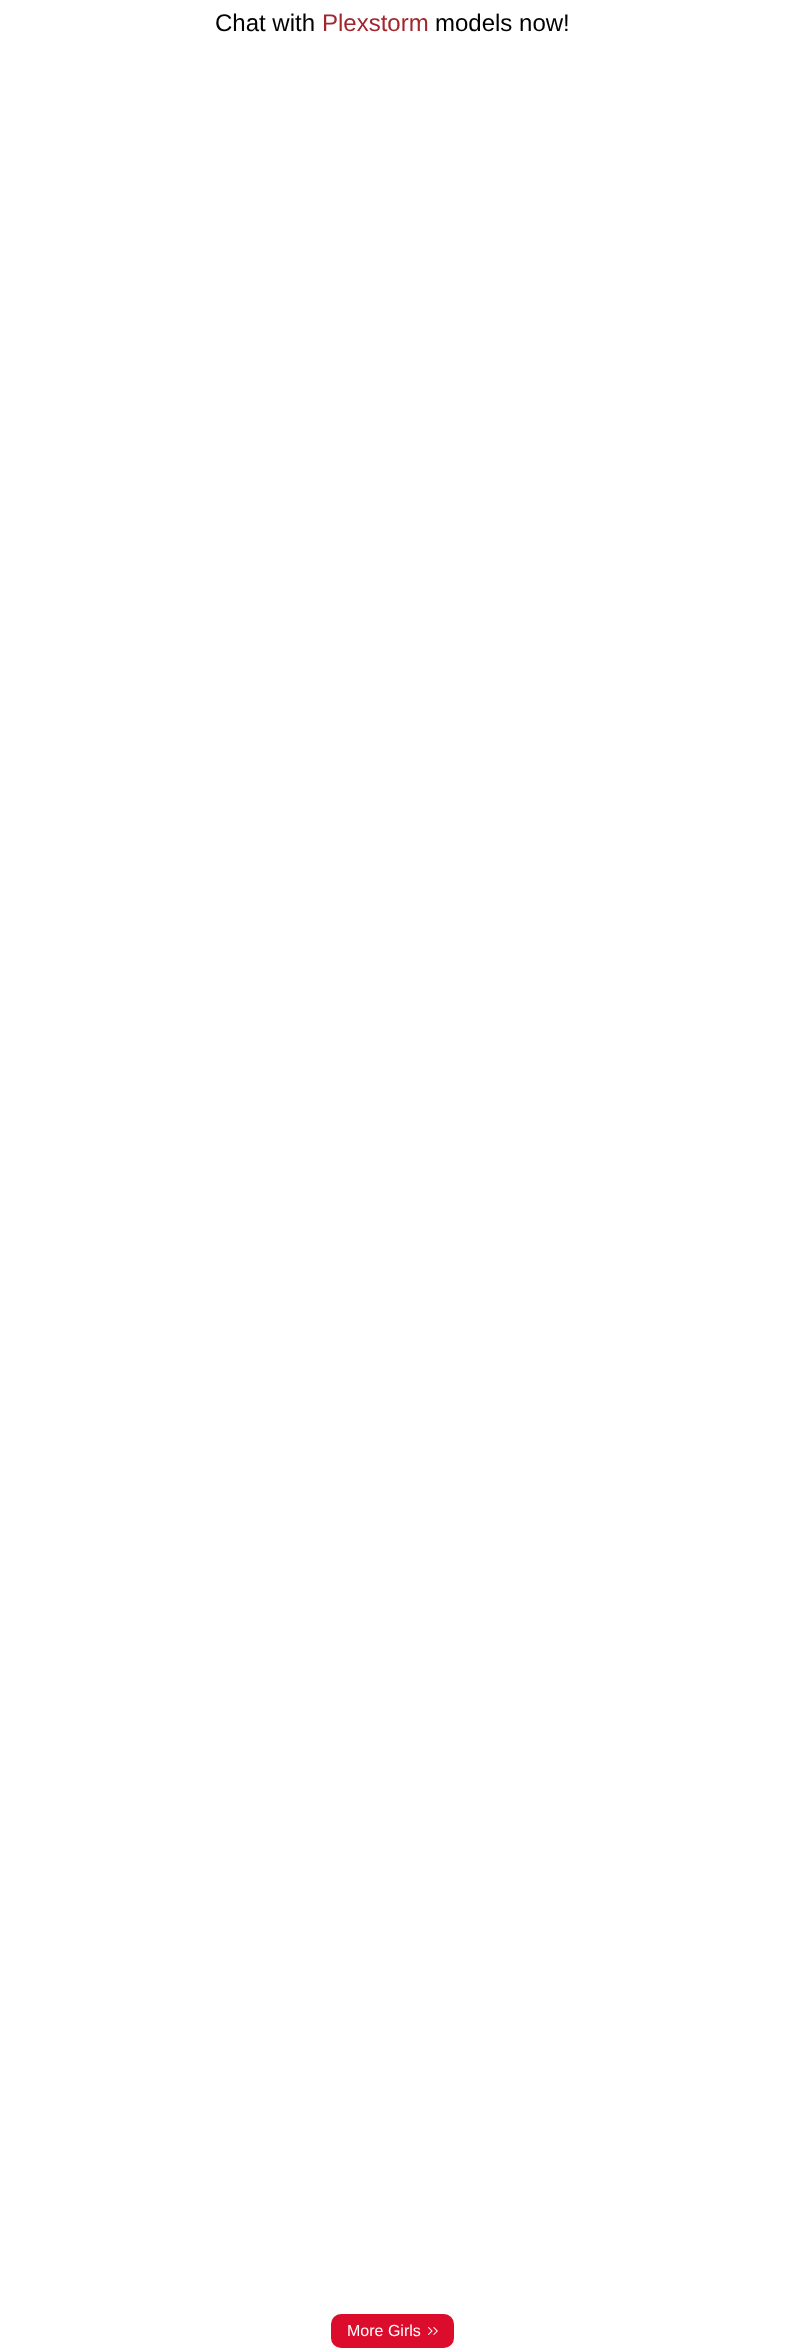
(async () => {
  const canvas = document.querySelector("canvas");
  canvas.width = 785;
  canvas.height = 2352;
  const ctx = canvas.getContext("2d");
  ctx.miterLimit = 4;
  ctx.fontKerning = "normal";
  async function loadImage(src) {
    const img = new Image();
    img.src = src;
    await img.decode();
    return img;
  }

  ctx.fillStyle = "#ffffff";
  ctx.fillRect(0, 0, 785, 2352);
  ctx.fillStyle = "#dc0c2c";
  ctx.beginPath();
  ctx.roundRect(331, 2314, 123, 34, 10);
  ctx.fill();
  ctx.drawImage(await loadImage("img/1.png"), 428, 2327, 10, 8);
  ctx.font = "24px Liberation Sans";
  ctx.fillStyle = "#000000";
  ctx.fillText("Chat with", 215, 31);
  ctx.fillStyle = "#a2262e";
  ctx.fillText("Plexstorm", 322, 31);
  ctx.fillStyle = "#000000";
  ctx.fillText("models now!", 435, 31);
  ctx.font = "16px Liberation Sans";
  ctx.fillStyle = "#ffffff";
  ctx.fillText("More Girls", 347, 2336);
})();
